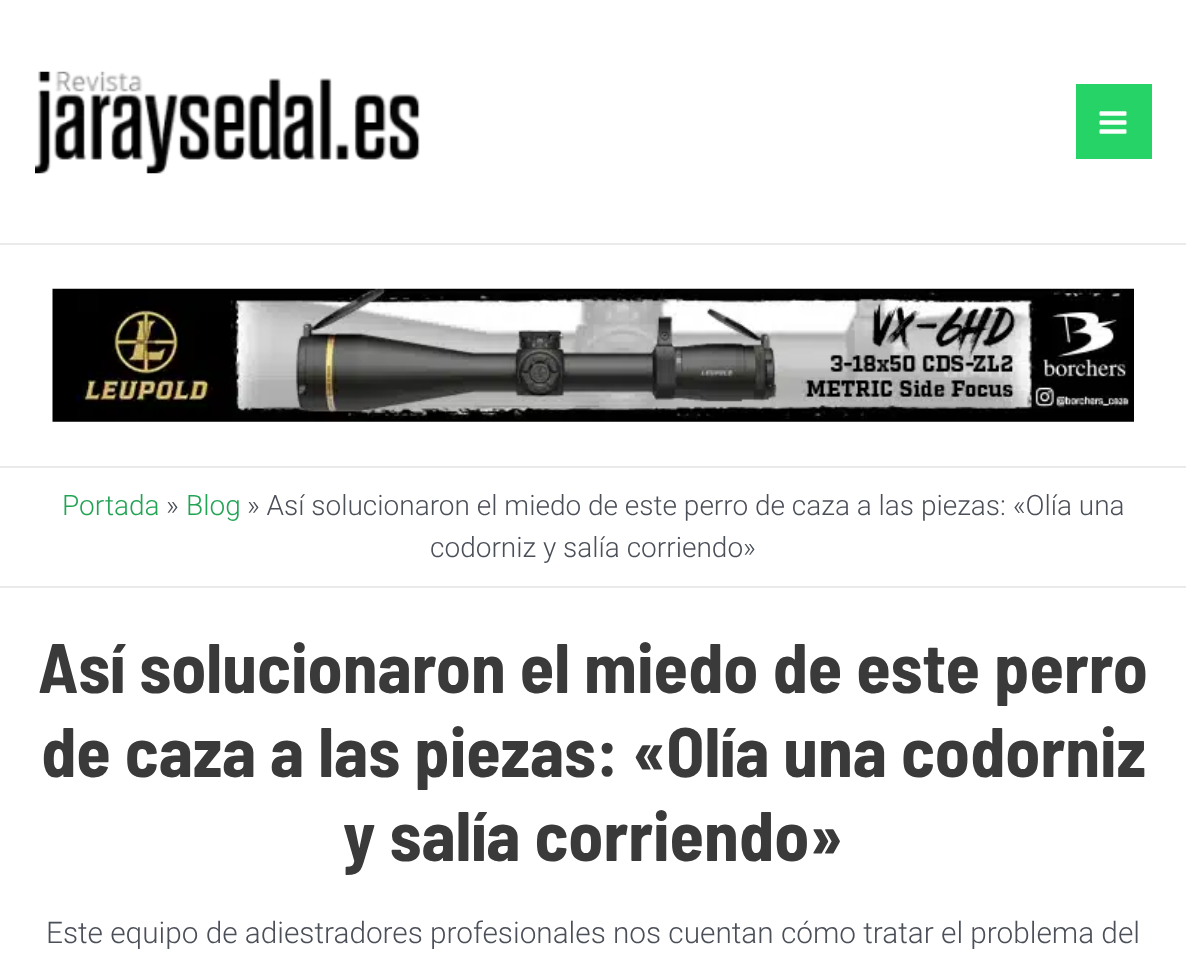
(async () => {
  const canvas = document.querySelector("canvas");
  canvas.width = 1186;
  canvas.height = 973;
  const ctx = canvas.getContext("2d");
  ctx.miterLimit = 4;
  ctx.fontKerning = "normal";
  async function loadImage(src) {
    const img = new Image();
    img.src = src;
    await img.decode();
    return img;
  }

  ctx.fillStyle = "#ffffff";
  ctx.fillRect(0, 0, 1186, 973);
  ctx.fillStyle = "#eaeaea";
  ctx.fillRect(0, 243, 1186, 2);
  ctx.drawImage(await loadImage("img/1.png"), 35, 71, 385, 103);
  ctx.fillStyle = "#25d366";
  ctx.fillRect(1076, 84, 76, 75);
  ctx.drawImage(await loadImage("img/2.png"), 1099, 111, 28, 23);
  ctx.fillStyle = "#eaeaea";
  ctx.fillRect(0, 466, 1186, 2);
  ctx.drawImage(await loadImage("img/3.png"), 52, 288, 1082, 134);
  ctx.fillRect(0, 586, 1186, 2);
  ctx.font = "300 28px Roboto";
  ctx.fillStyle = "#23a455";
  ctx.fillText("Portada", 62, 515);
  ctx.fillStyle = "#4b4f58";
  ctx.fillText("»", 166, 515);
  ctx.fillStyle = "#23a455";
  ctx.fillText("Blog", 186, 515);
  ctx.fillStyle = "#4b4f58";
  ctx.fillText("» Así solucionaron el miedo de este perro de caza a las piezas: «Olía una", 247, 515);
  ctx.fillText("codorniz y salía corriendo»", 430, 557);
  ctx.font = "bold 70px Barlow Semi Condensed";
  ctx.fillStyle = "#3a3a3a";
  for (const [text, x, y] of [
    ["Así solucionaron el miedo de este perro", 38, 693],
    ["de caza a las piezas: «Olía una codorniz", 41, 777],
    ["y salía corriendo»", 343, 861],
  ]) {
    ctx.fillText(text, x, y);
  }
  ctx.font = "300 29.75px Roboto";
  ctx.fillStyle = "#4b4f58";
  ctx.fillText("Este equipo de adiestradores profesionales nos cuentan cómo tratar el problema del", 46, 943);
})();
